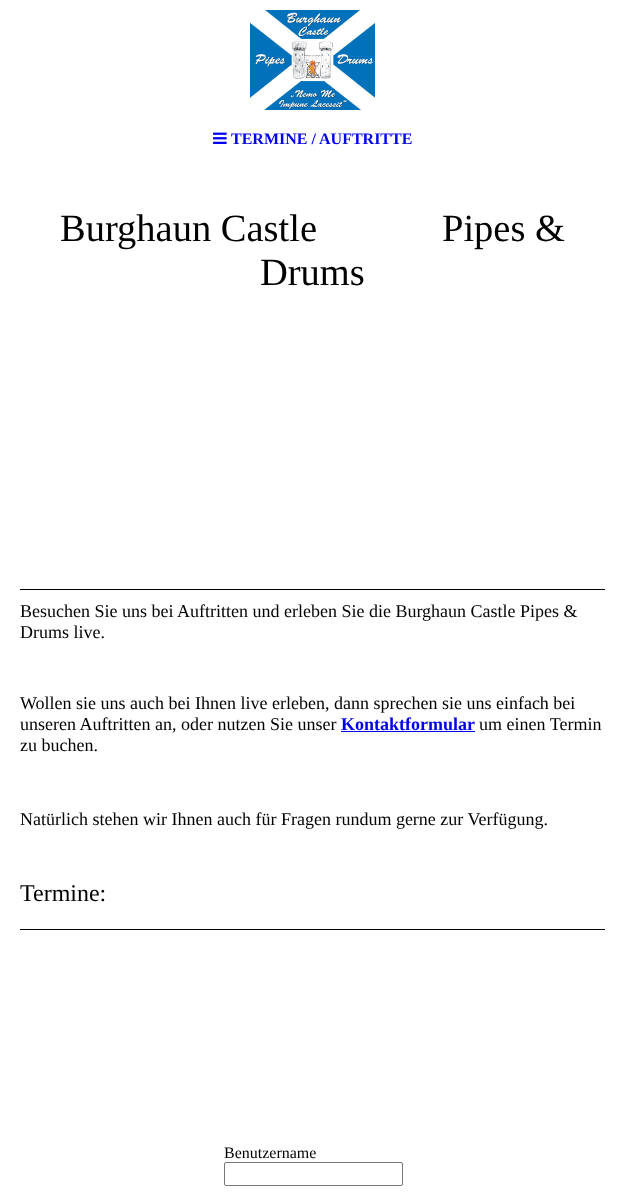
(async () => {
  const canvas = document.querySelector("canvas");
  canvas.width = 625;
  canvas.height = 1203;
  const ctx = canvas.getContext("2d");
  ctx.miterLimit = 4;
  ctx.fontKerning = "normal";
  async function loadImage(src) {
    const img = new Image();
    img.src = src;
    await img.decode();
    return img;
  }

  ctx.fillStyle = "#ffffff";
  ctx.fillRect(0, 0, 625, 1203);
  ctx.drawImage(await loadImage("img/1.png"), 250, 10, 125, 100);
  ctx.drawImage(await loadImage("img/2.png"), 213, 132, 14, 12);
  for (const [x, y, w, h, color] of [
    [20, 589, 585, 1, "#000000"],
    [341, 731, 134, 1, "#0000ee"],
    [20, 929, 585, 1, "#000000"],
  ]) {
    ctx.fillStyle = color;
    ctx.fillRect(x, y, w, h);
  }
  ctx.beginPath();
  ctx.roundRect(224.5, 1162.5, 178, 23, 1.5);
  ctx.strokeStyle = "#767676";
  ctx.stroke();
  ctx.font = "bold 16px Liberation Serif";
  ctx.fillStyle = "#0000ee";
  ctx.fillText("TERMINE / AUFTRITTE", 231, 144);
  ctx.font = "38.5px Liberation Serif";
  ctx.fillStyle = "#000000";
  for (const [text, x, y] of [
    ["Burghaun Castle", 60, 241],
    ["Pipes &", 442, 241],
    ["Drums", 260, 285],
  ]) {
    ctx.fillText(text, x, y);
  }
  ctx.font = "18px Liberation Serif";
  for (const [text, x, y] of [
    ["Besuchen Sie uns bei Auftritten und erleben Sie die Burghaun Castle Pipes &", 20, 617],
    ["Drums live.", 20, 638],
    ["Wollen sie uns auch bei Ihnen live erleben, dann sprechen sie uns einfach bei", 20, 709],
    ["unseren Auftritten an, oder nutzen Sie unser", 20, 730],
  ]) {
    ctx.fillText(text, x, y);
  }
  ctx.font = "bold 18px Liberation Serif";
  ctx.fillStyle = "#0000ee";
  ctx.fillText("Kontaktformular", 341, 730);
  ctx.font = "18px Liberation Serif";
  ctx.fillStyle = "#000000";
  for (const [text, x, y] of [
    ["um einen Termin", 479, 730],
    ["zu buchen.", 20, 751],
    ["Natürlich stehen wir Ihnen auch für Fragen rundum gerne zur Verfügung.", 20, 825],
  ]) {
    ctx.fillText(text, x, y);
  }
  ctx.font = "24px Liberation Serif";
  ctx.fillText("Termine:", 20, 901);
  ctx.font = "16px Liberation Serif";
  ctx.fillText("Benutzername", 224, 1158);
})();
